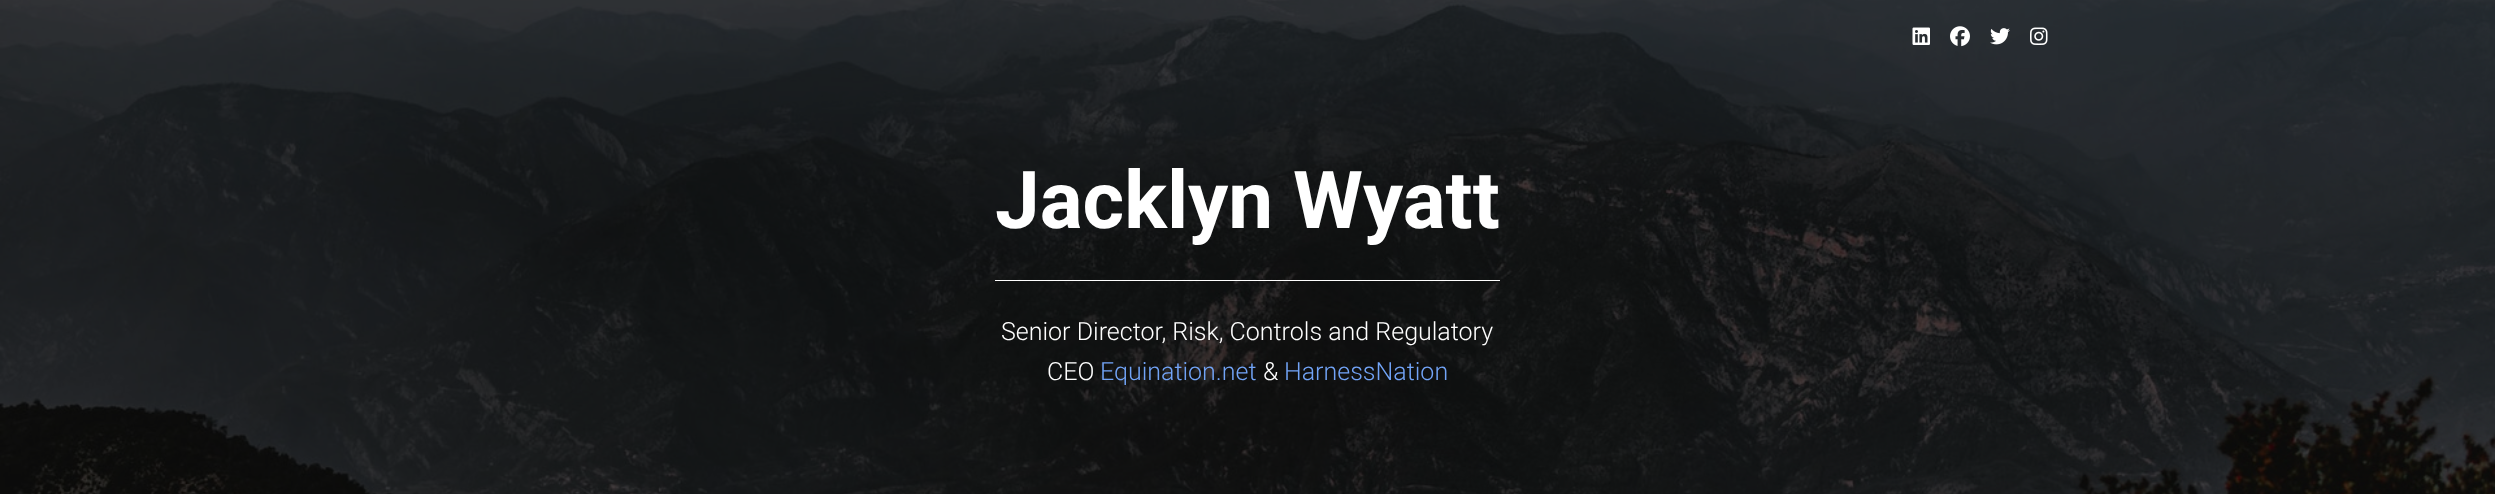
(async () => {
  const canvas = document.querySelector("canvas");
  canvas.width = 2495;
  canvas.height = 494;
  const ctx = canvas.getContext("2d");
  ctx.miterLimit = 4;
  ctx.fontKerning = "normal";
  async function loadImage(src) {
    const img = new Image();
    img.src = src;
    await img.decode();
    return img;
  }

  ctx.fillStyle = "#ffffff";
  ctx.fillRect(0, 0, 2495, 494);
  ctx.drawImage(await loadImage("img/5.png"), 0, 0, 2495, 494);
  ctx.drawImage(await loadImage("img/1.png"), 1912, 27, 18, 18);
  ctx.drawImage(await loadImage("img/2.png"), 1950, 26, 20, 21);
  ctx.drawImage(await loadImage("img/3.png"), 1990, 28, 20, 17);
  ctx.drawImage(await loadImage("img/4.png"), 2030, 27, 18, 18);
  ctx.fillRect(995, 280, 505, 1);
  ctx.font = "bold 80px Roboto";
  ctx.fillText("Jacklyn Wyatt", 995, 228);
  ctx.font = "300 25px Roboto";
  ctx.fillText("Senior Director, Risk, Controls and Regulatory", 1001, 340);
  ctx.fillText("CEO", 1047, 380);
  ctx.fillStyle = "#72a4f7";
  ctx.fillText("Equination.net", 1100, 380);
  ctx.fillStyle = "#ffffff";
  ctx.fillText("&", 1263, 380);
  ctx.fillStyle = "#72a4f7";
  ctx.fillText("HarnessNation", 1284, 380);
})();
